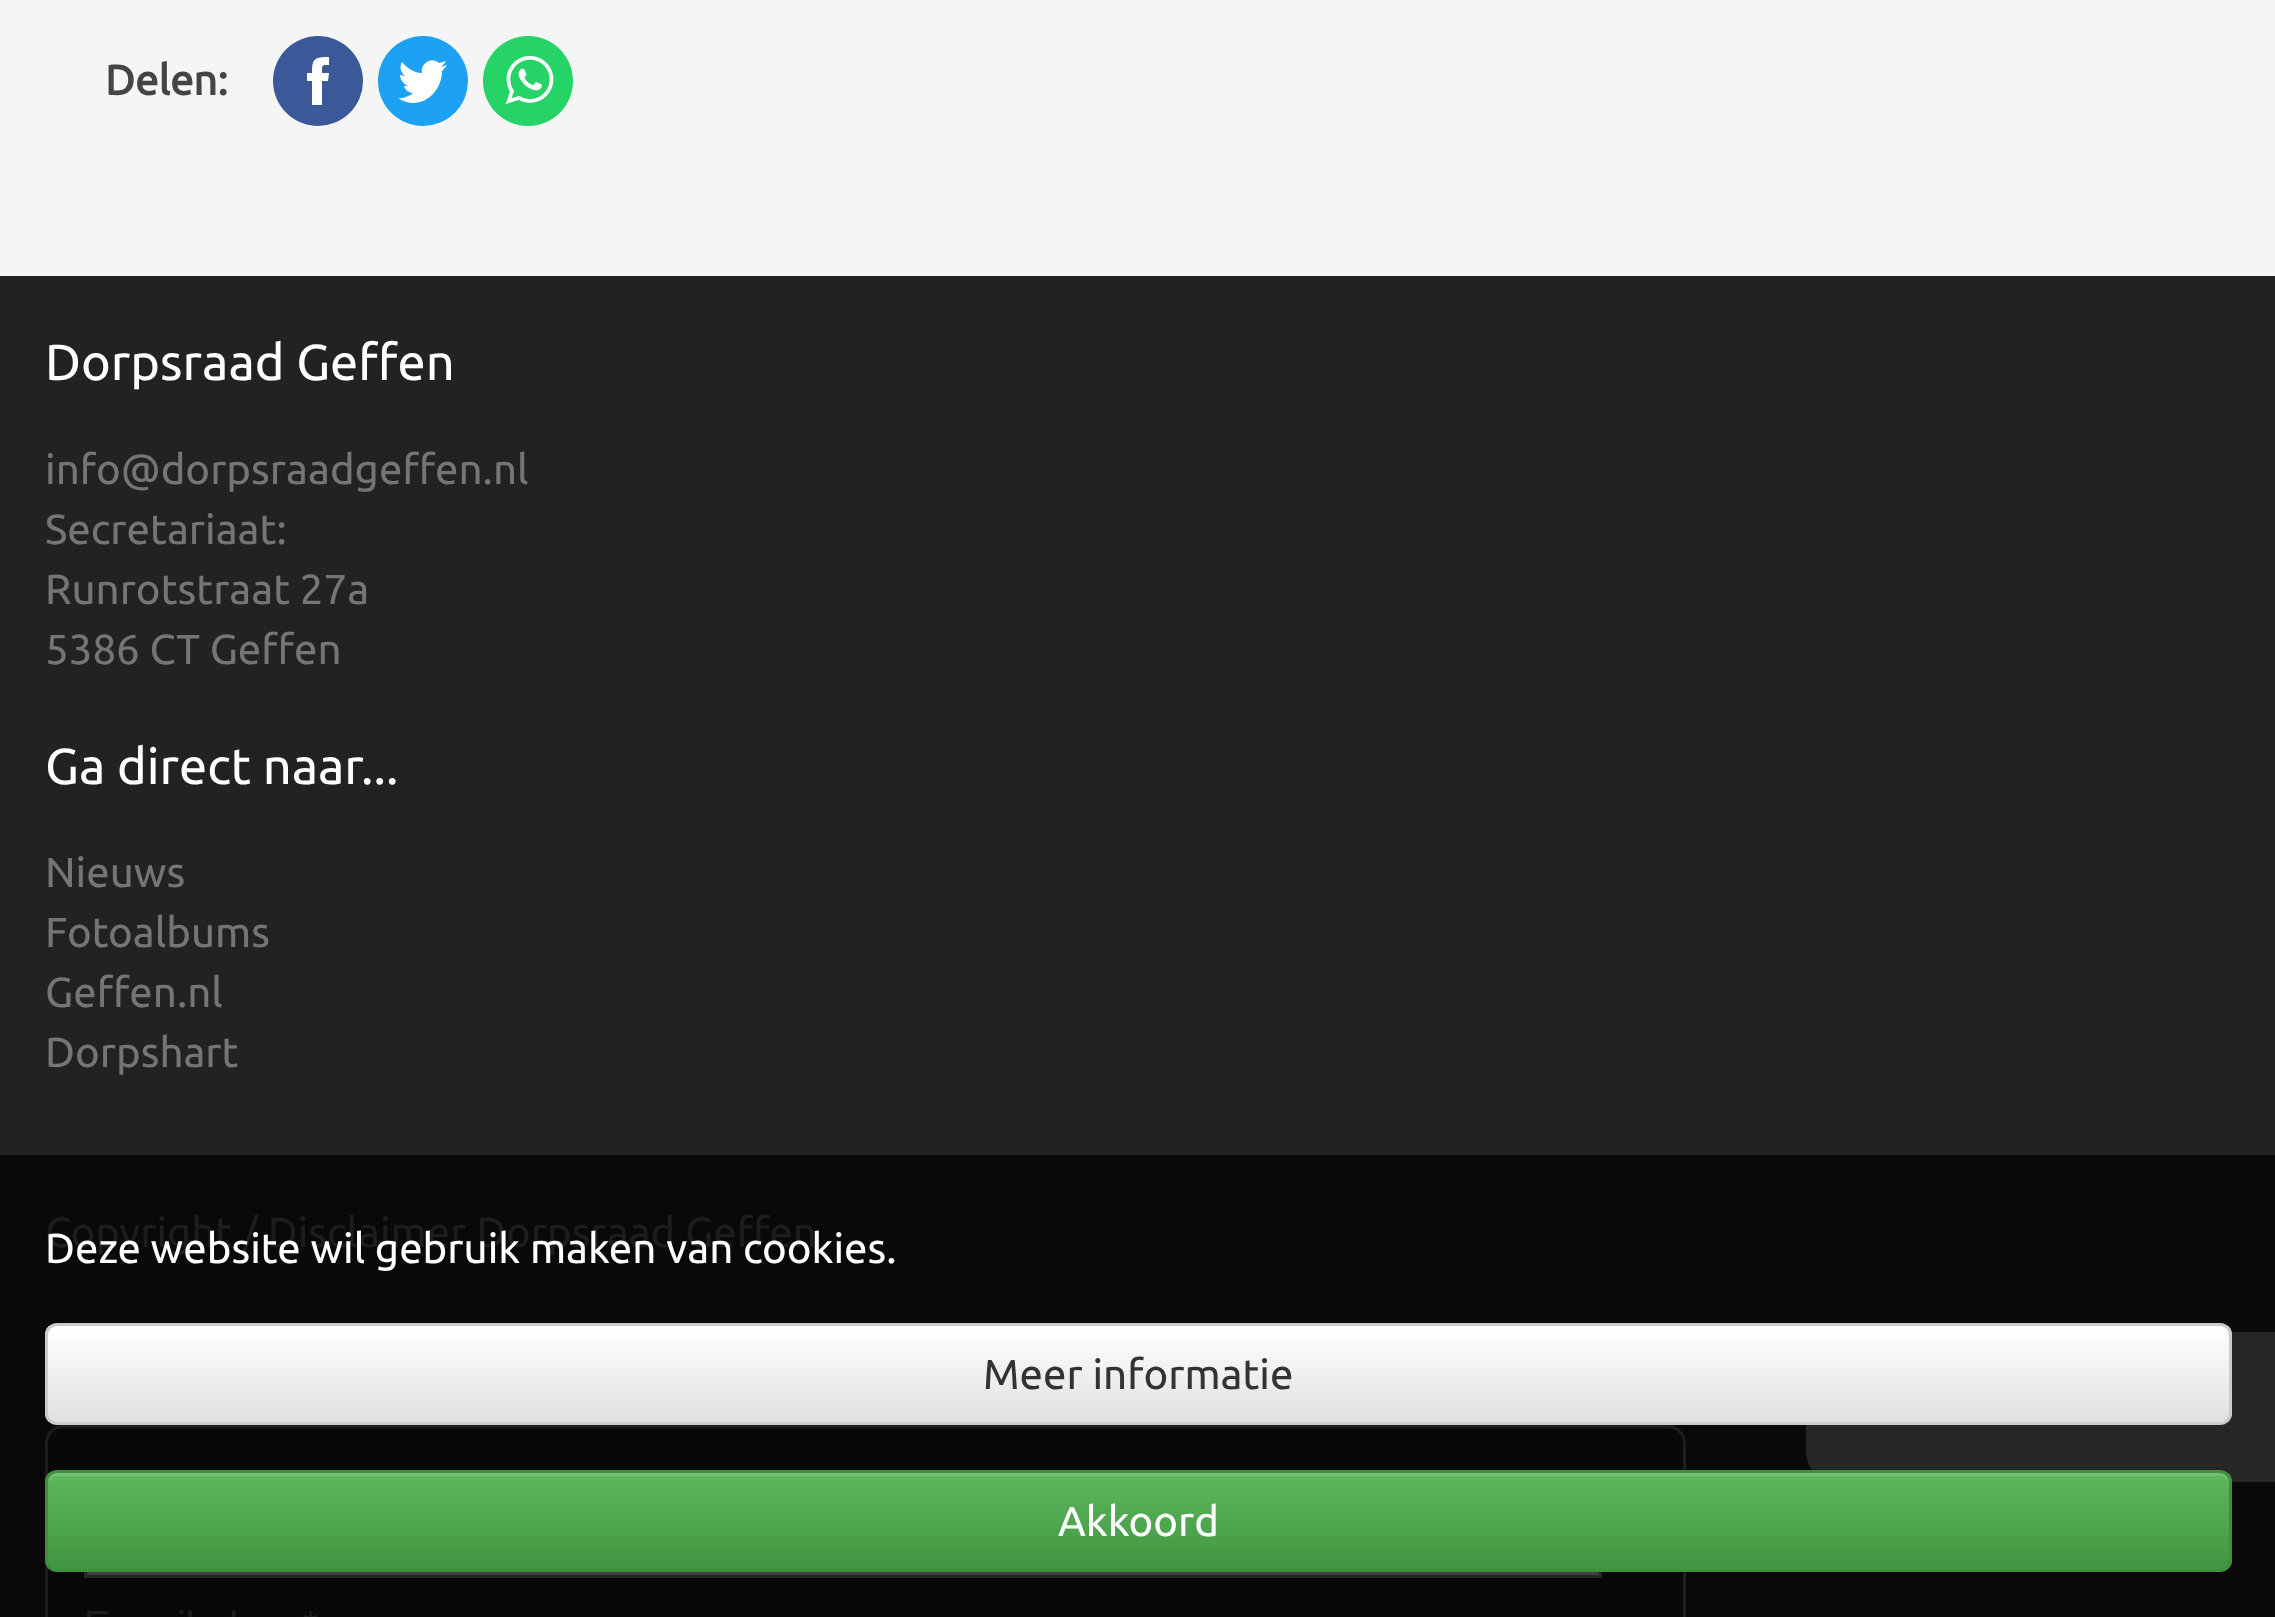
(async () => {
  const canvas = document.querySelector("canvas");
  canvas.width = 2275;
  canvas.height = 1617;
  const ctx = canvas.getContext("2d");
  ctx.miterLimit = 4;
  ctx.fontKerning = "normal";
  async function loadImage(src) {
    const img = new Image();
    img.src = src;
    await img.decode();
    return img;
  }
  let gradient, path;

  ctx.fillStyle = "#f5f5f5";
  ctx.fillRect(0, 0, 2275, 1617);
  ctx.fillStyle = "#3b5998";
  ctx.beginPath();
  ctx.arc(318, 81, 45, 0, Math.PI * 2);
  ctx.fill();
  ctx.fillStyle = "#ffffff";
  path = new Path2D("M329 73H322C322 64 322 65 329 65V57C315 57 312 58 312 73H307V81H312V105H322V81H328Z");
  ctx.fill(path);
  ctx.fillStyle = "#1da1f2";
  ctx.beginPath();
  ctx.arc(423, 81, 45, 0, Math.PI * 2);
  ctx.fill();
  ctx.fillStyle = "#ffffff";
  path = new Path2D("M447 65L441 67C443 65 445 63 446 61L439 63C432 56 420 63 422 73C414 73 407 68 402 62C399 67 401 73 405 76L400 75C400 80 404 84 408 86H404C405 90 409 93 413 93C409 96 404 99 398 98C419 112 442 94 442 71C444 69 446 67 447 65Z");
  ctx.fill(path);
  ctx.drawImage(await loadImage("img/1.png"), 483, 36, 90, 90);
  ctx.fillStyle = "#222222";
  ctx.fillRect(0, 276, 2275, 879);
  ctx.fillStyle = "#090909";
  ctx.fillRect(0, 1155, 2275, 462);
  ctx.drawImage(await loadImage("img/2.png"), 45, 1425, 1641, 192);
  ctx.fillStyle = "#262626";
  path = new Path2D("M1836 1332H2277V1482H1836C1819.5 1482 1806 1468.5 1806 1452V1362C1806 1345.5 1819.5 1332 1836 1332Z");
  ctx.fill(path);
  ctx.save();
  ctx.beginPath();
  ctx.roundRect(45, 1323, 2187, 102, 12);
  ctx.clip();
  gradient = ctx.createLinearGradient(1139, 1326, 1139, 1422);
  gradient.addColorStop(0, "#ffffff");
  gradient.addColorStop(1, "#e0e0e0");
  ctx.fillStyle = gradient;
  ctx.fillRect(45, 1326, 2187, 96);
  ctx.restore();
  ctx.beginPath();
  ctx.roundRect(46.5, 1324.5, 2184, 99, 10.5);
  ctx.strokeStyle = "#cccccc";
  ctx.lineWidth = 3;
  ctx.stroke();
  ctx.save();
  ctx.beginPath();
  ctx.roundRect(45, 1470, 2187, 102, 12);
  ctx.clip();
  gradient = ctx.createLinearGradient(1139, 1473, 1139, 1569);
  gradient.addColorStop(0, "#5cb85c");
  gradient.addColorStop(1, "#419641");
  ctx.fillStyle = gradient;
  ctx.fillRect(45, 1473, 2187, 96);
  ctx.restore();
  ctx.fillStyle = "rgba(255, 255, 255, 0.15)";
  path = new Path2D("M57 1476H2220C2225 1476 2229 1480 2229 1485C2229 1479 2227 1473 2220 1473H57C50 1473 48 1479 48 1485C48 1480 52 1476 57 1476Z");
  ctx.fill(path);
  ctx.beginPath();
  ctx.roundRect(46.5, 1471.5, 2184, 99, 10.5);
  ctx.strokeStyle = "#3e8f3e";
  ctx.stroke();
  ctx.font = "bold 42px Ubuntu";
  ctx.fillStyle = "#444444";
  ctx.fillText("Delen:", 105, 95);
  ctx.font = "50.5px Ubuntu";
  ctx.fillStyle = "#ffffff";
  ctx.fillText("Dorpsraad Geffen", 45, 380);
  ctx.font = "42px Ubuntu";
  ctx.fillStyle = "#757575";
  for (const [text, x, y] of [
    ["info@dorpsraadgeffen.nl", 45, 484],
    ["Secretariaat:", 45, 544],
    ["Runrotstraat 27a", 45, 604],
    ["5386 CT Geffen", 45, 664],
  ]) {
    ctx.fillText(text, x, y);
  }
  ctx.font = "50.5px Ubuntu";
  ctx.fillStyle = "#ffffff";
  ctx.fillText("Ga direct naar...", 45, 784);
  ctx.font = "42px Ubuntu";
  ctx.fillStyle = "#757575";
  for (const [text, x, y] of [
    ["Nieuws", 45, 887],
    ["Fotoalbums", 45, 947],
    ["Geffen.nl", 45, 1007],
    ["Dorpshart", 45, 1067],
  ]) {
    ctx.fillText(text, x, y);
  }
  ctx.fillStyle = "#1d1d1d";
  ctx.fillText("Copyright / Disclaimer Dorpsraad Geffen", 45, 1247);
  ctx.fillStyle = "#ffffff";
  ctx.fillText("Deze website wil gebruik maken van cookies.", 45, 1263);
  ctx.fillStyle = "#333333";
  ctx.fillText("Meer informatie", 983, 1389);
  ctx.fillStyle = "#ffffff";
  ctx.fillText("Akkoord", 1058, 1536);
})();
